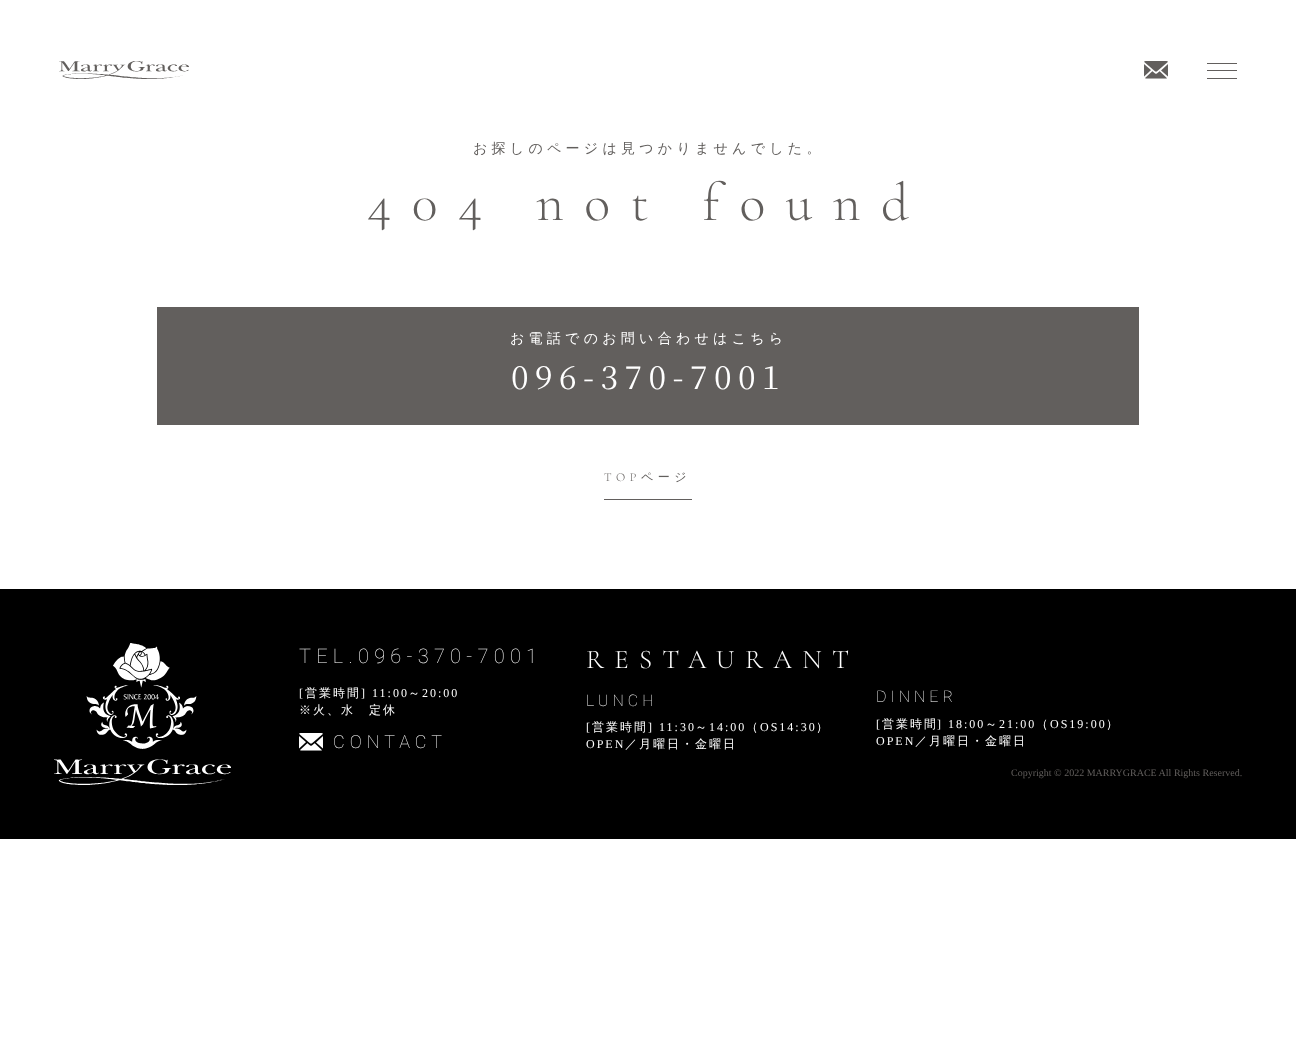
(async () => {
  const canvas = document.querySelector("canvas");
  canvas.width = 1296;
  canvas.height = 1039;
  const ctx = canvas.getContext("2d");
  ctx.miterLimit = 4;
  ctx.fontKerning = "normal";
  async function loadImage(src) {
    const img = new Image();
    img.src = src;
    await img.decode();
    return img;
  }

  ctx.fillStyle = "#ffffff";
  ctx.fillRect(0, 0, 1296, 1039);
  ctx.drawImage(await loadImage("img/1.png"), 59, 61, 130, 18);
  ctx.drawImage(await loadImage("img/2.png"), 1144, 61, 24, 18);
  for (const [x, y, w, h, color] of [
    [1207, 63, 30, 1, "#625f5d"],
    [1207, 70, 30, 1, "#625f5d"],
    [1207, 78, 30, 1, "#625f5d"],
    [157, 307, 982, 118, "#625f5d"],
    [604, 499, 88, 1, "#625f5d"],
    [0, 589, 1296, 250, "#000000"],
  ]) {
    ctx.fillStyle = color;
    ctx.fillRect(x, y, w, h);
  }
  ctx.drawImage(await loadImage("img/3.png"), 54, 643, 177, 142);
  ctx.drawImage(await loadImage("img/4.png"), 299, 733, 24, 18);
  ctx.letterSpacing = "4.25px";
  ctx.font = "500 14px WenQuanYi Zen Hei";
  ctx.fillStyle = "#625f5d";
  ctx.fillText("お探しのページは見つかりませんでした。", 473, 153);
  ctx.letterSpacing = "20.5px";
  ctx.font = "300 54px Cormorant Garamond";
  ctx.fillText("404 not found", 367, 220);
  ctx.letterSpacing = "4.25px";
  ctx.font = "500 14px WenQuanYi Zen Hei";
  ctx.fillStyle = "#ffffff";
  ctx.fillText("お電話でのお問い合わせはこちら", 510, 343);
  ctx.letterSpacing = "6.4px";
  ctx.font = "32px Noto Serif JP";
  ctx.fillText("096-370-7001", 511, 389);
  ctx.letterSpacing = "4.5px";
  ctx.font = "300 12px Cormorant Garamond";
  ctx.fillStyle = "#625f5d";
  ctx.fillText("TOP", 604, 481);
  ctx.font = "500 12px WenQuanYi Zen Hei";
  ctx.fillText("ページ", 641, 481);
  ctx.letterSpacing = "5.25px";
  ctx.font = "100 20px Roboto";
  ctx.fillStyle = "#ffffff";
  ctx.fillText("TEL.096-370-7001", 299, 663);
  ctx.letterSpacing = "2px";
  ctx.font = "12px Liberation Serif";
  ctx.fillText("[", 299, 697);
  ctx.font = "500 12px WenQuanYi Zen Hei";
  ctx.fillText("営業時間", 305, 697);
  ctx.font = "12px Liberation Serif";
  ctx.fillText("] 11:00", 361, 697);
  ctx.font = "500 12px WenQuanYi Zen Hei";
  ctx.fillText("～", 408, 697);
  ctx.font = "12px Liberation Serif";
  ctx.fillText("20:00", 422, 697);
  ctx.font = "500 12px WenQuanYi Zen Hei";
  ctx.fillText("※火、水　定休", 299, 714);
  ctx.letterSpacing = "5px";
  ctx.font = "100 18px Roboto";
  ctx.fillText("CONTACT", 333, 748);
  ctx.letterSpacing = "10.25px";
  ctx.font = "300 27px Cormorant Garamond";
  ctx.fillText("RESTAURANT", 586, 668);
  ctx.letterSpacing = "4px";
  ctx.font = "100 16px Roboto";
  ctx.fillText("LUNCH", 586, 706);
  ctx.letterSpacing = "2px";
  ctx.font = "12px Liberation Serif";
  ctx.fillText("[", 586, 731);
  ctx.font = "500 12px WenQuanYi Zen Hei";
  ctx.fillText("営業時間", 592, 731);
  ctx.font = "12px Liberation Serif";
  ctx.fillText("] 11:30", 648, 731);
  ctx.font = "500 12px WenQuanYi Zen Hei";
  ctx.fillText("～", 695, 731);
  ctx.font = "12px Liberation Serif";
  ctx.fillText("14:00", 709, 731);
  ctx.font = "500 12px WenQuanYi Zen Hei";
  ctx.fillText("（", 746, 731);
  ctx.font = "12px Liberation Serif";
  ctx.fillText("OS14:30", 760, 731);
  ctx.font = "500 12px WenQuanYi Zen Hei";
  ctx.fillText("）", 816, 731);
  ctx.font = "12px Liberation Serif";
  ctx.fillText("OPEN", 586, 748);
  ctx.font = "500 12px WenQuanYi Zen Hei";
  ctx.fillText("／月曜日・金曜日", 625, 748);
  ctx.letterSpacing = "4px";
  ctx.font = "100 16px Roboto";
  ctx.fillText("DINNER", 876, 702);
  ctx.letterSpacing = "2px";
  ctx.font = "12px Liberation Serif";
  ctx.fillText("[", 876, 728);
  ctx.font = "500 12px WenQuanYi Zen Hei";
  ctx.fillText("営業時間", 882, 728);
  ctx.font = "12px Liberation Serif";
  ctx.fillText("] 18:00", 937, 728);
  ctx.font = "500 12px WenQuanYi Zen Hei";
  ctx.fillText("～", 985, 728);
  ctx.font = "12px Liberation Serif";
  ctx.fillText("21:00", 999, 728);
  ctx.font = "500 12px WenQuanYi Zen Hei";
  ctx.fillText("（", 1036, 728);
  ctx.font = "12px Liberation Serif";
  ctx.fillText("OS19:00", 1050, 728);
  ctx.font = "500 12px WenQuanYi Zen Hei";
  ctx.fillText("）", 1106, 728);
  ctx.font = "12px Liberation Serif";
  ctx.fillText("OPEN", 876, 745);
  ctx.font = "500 12px WenQuanYi Zen Hei";
  ctx.fillText("／月曜日・金曜日", 915, 745);
  ctx.letterSpacing = "0px";
  ctx.font = "10px Liberation Serif";
  ctx.fillStyle = "#625f5d";
  ctx.fillText("Copyright © 2022 MARRYGRACE All Rights Reserved.", 1011, 776);
})();
